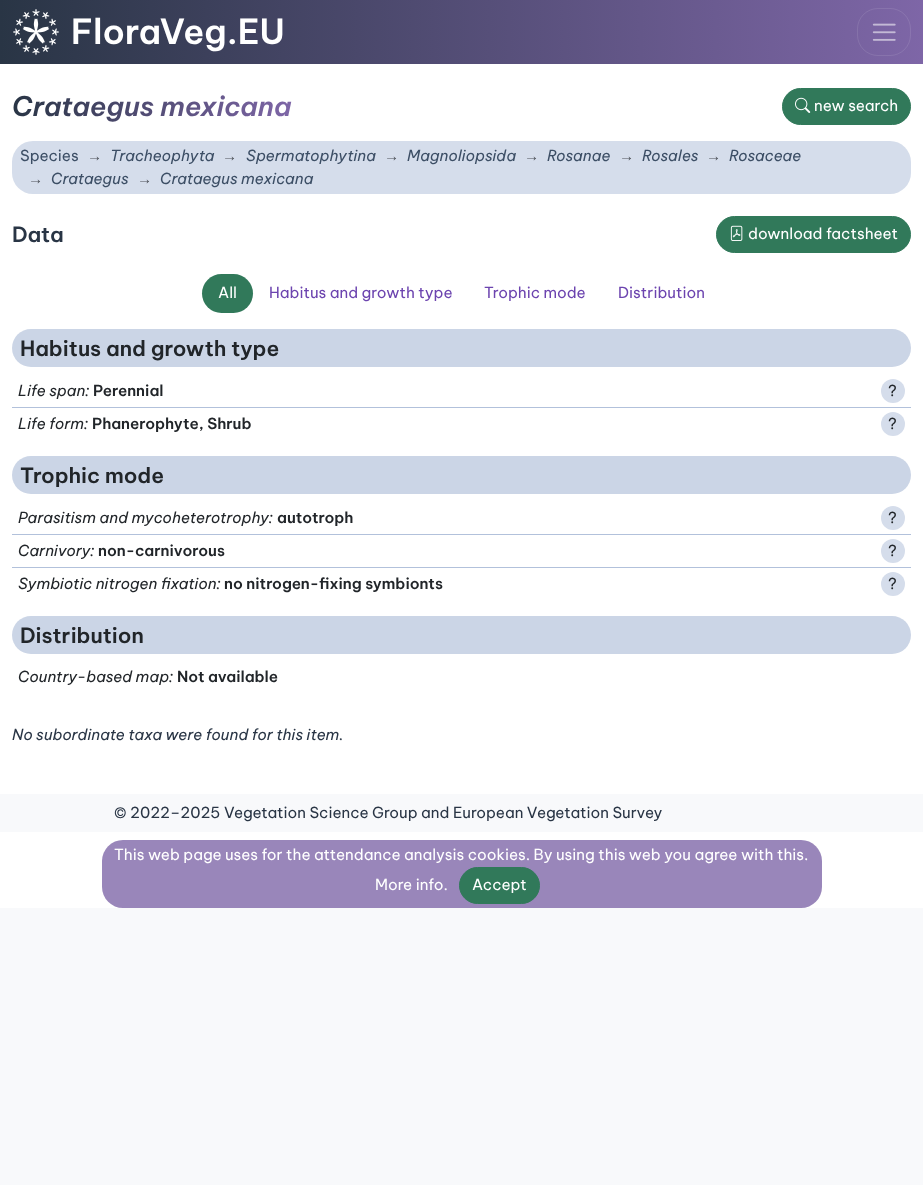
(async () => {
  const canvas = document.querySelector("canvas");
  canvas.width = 923;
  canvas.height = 1185;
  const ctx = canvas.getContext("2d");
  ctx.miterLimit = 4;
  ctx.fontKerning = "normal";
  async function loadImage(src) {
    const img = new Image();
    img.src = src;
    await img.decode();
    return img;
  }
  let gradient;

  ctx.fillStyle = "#f8f9fb";
  ctx.fillRect(0, 0, 923, 1185);
  gradient = ctx.createLinearGradient(0, 32, 923, 32);
  gradient.addColorStop(0, "#293545");
  gradient.addColorStop(1, "#7e66a7");
  ctx.fillStyle = gradient;
  ctx.fillRect(0, 0, 923, 64);
  ctx.drawImage(await loadImage("img/1.png"), 13, 9, 46, 46);
  ctx.beginPath();
  ctx.roundRect(857.5, 8.5, 53, 47, 20.5);
  ctx.strokeStyle = "rgba(255, 255, 255, 0.1)";
  ctx.stroke();
  ctx.drawImage(await loadImage("img/2.png"), 872, 23, 24, 18);
  ctx.fillStyle = "#ffffff";
  ctx.fillRect(0, 64, 923, 844);
  ctx.fillStyle = "#31795a";
  ctx.beginPath();
  ctx.roundRect(782.5, 88.5, 128, 36, 18);
  ctx.fill();
  ctx.strokeStyle = "#31795a";
  ctx.stroke();
  ctx.drawImage(await loadImage("img/3.png"), 795, 97, 16, 16);
  ctx.fillStyle = "#d5ddeb";
  ctx.beginPath();
  ctx.roundRect(12, 141, 899, 53, 21);
  ctx.fill();
  ctx.fillStyle = "#31795a";
  ctx.beginPath();
  ctx.roundRect(716.5, 216.5, 194, 36, 18);
  ctx.fill();
  ctx.stroke();
  ctx.drawImage(await loadImage("img/4.png"), 730, 225, 13, 16);
  ctx.beginPath();
  ctx.roundRect(202, 274, 51, 39, 19.5);
  ctx.fill();
  ctx.fillStyle = "#cbd5e6";
  ctx.beginPath();
  ctx.roundRect(12, 329, 899, 38, 19);
  ctx.fill();
  ctx.fillStyle = "#d5ddeb";
  ctx.beginPath();
  ctx.arc(893, 391, 12, 0, Math.PI * 2);
  ctx.fill();
  ctx.fillStyle = "#b2c1db";
  ctx.fillRect(12, 407, 899, 1);
  ctx.fillStyle = "#d5ddeb";
  ctx.beginPath();
  ctx.arc(893, 424, 12, 0, Math.PI * 2);
  ctx.fill();
  ctx.fillStyle = "#cbd5e6";
  ctx.beginPath();
  ctx.roundRect(12, 456, 899, 38, 19);
  ctx.fill();
  ctx.fillStyle = "#d5ddeb";
  ctx.beginPath();
  ctx.arc(893, 518, 12, 0, Math.PI * 2);
  ctx.fill();
  ctx.fillStyle = "#b2c1db";
  ctx.fillRect(12, 534, 899, 1);
  ctx.fillStyle = "#d5ddeb";
  ctx.beginPath();
  ctx.arc(893, 551, 12, 0, Math.PI * 2);
  ctx.fill();
  ctx.fillStyle = "#b2c1db";
  ctx.fillRect(12, 567, 899, 1);
  ctx.fillStyle = "#d5ddeb";
  ctx.beginPath();
  ctx.arc(893, 584, 12, 0, Math.PI * 2);
  ctx.fill();
  ctx.fillStyle = "#cbd5e6";
  ctx.beginPath();
  ctx.roundRect(12, 616, 899, 38, 19);
  ctx.fill();
  ctx.fillStyle = "#f8f9fb";
  ctx.fillRect(0, 794, 923, 38);
  ctx.fillStyle = "#9986ba";
  ctx.beginPath();
  ctx.roundRect(102, 840, 720, 68, 21);
  ctx.fill();
  ctx.fillStyle = "#31795a";
  ctx.beginPath();
  ctx.roundRect(459.5, 867.5, 80, 36, 18);
  ctx.fill();
  ctx.stroke();
  ctx.font = "600 34.5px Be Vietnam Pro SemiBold";
  ctx.fillStyle = "#ffffff";
  ctx.fillText("FloraVeg.EU", 71, 44);
  ctx.font = "italic 600 27px Be Vietnam Pro SemiBold";
  gradient = ctx.createLinearGradient(12, 106, 292, 106);
  gradient.addColorStop(0, "#293545");
  gradient.addColorStop(1, "#7e66a7");
  ctx.fillStyle = gradient;
  ctx.fillText("Crataegus mexicana", 12, 116);
  ctx.font = "15.2px Be Vietnam Pro";
  ctx.fillStyle = "#ffffff";
  ctx.fillText("new search", 814, 111);
  ctx.fillStyle = "#3c4e65";
  ctx.fillText("Species", 20, 161);
  ctx.font = "15.2px Liberation Sans";
  ctx.fillStyle = "#4e535a";
  ctx.fillText("→", 87, 161);
  ctx.font = "italic 15.2px Be Vietnam Pro";
  ctx.fillStyle = "#3c4e65";
  ctx.fillText("Tracheophyta", 110, 161);
  ctx.font = "15.2px Liberation Sans";
  ctx.fillStyle = "#4e535a";
  ctx.fillText("→", 222, 161);
  ctx.font = "italic 15.2px Be Vietnam Pro";
  ctx.fillStyle = "#3c4e65";
  ctx.fillText("Spermatophytina", 246, 161);
  ctx.font = "15.2px Liberation Sans";
  ctx.fillStyle = "#4e535a";
  ctx.fillText("→", 384, 161);
  ctx.font = "italic 15.2px Be Vietnam Pro";
  ctx.fillStyle = "#3c4e65";
  ctx.fillText("Magnoliopsida", 407, 161);
  ctx.font = "15.2px Liberation Sans";
  ctx.fillStyle = "#4e535a";
  ctx.fillText("→", 524, 161);
  ctx.font = "italic 15.2px Be Vietnam Pro";
  ctx.fillStyle = "#3c4e65";
  ctx.fillText("Rosanae", 547, 161);
  ctx.font = "15.2px Liberation Sans";
  ctx.fillStyle = "#4e535a";
  ctx.fillText("→", 619, 161);
  ctx.font = "italic 15.2px Be Vietnam Pro";
  ctx.fillStyle = "#3c4e65";
  ctx.fillText("Rosales", 642, 161);
  ctx.font = "15.2px Liberation Sans";
  ctx.fillStyle = "#4e535a";
  ctx.fillText("→", 706, 161);
  ctx.font = "italic 15.2px Be Vietnam Pro";
  ctx.fillStyle = "#3c4e65";
  ctx.fillText("Rosaceae", 729, 161);
  ctx.font = "15.2px Liberation Sans";
  ctx.fillStyle = "#4e535a";
  ctx.fillText("→", 28, 184);
  ctx.font = "italic 15.2px Be Vietnam Pro";
  ctx.fillStyle = "#3c4e65";
  ctx.fillText("Crataegus", 51, 184);
  ctx.font = "15.2px Liberation Sans";
  ctx.fillStyle = "#4e535a";
  ctx.fillText("→", 137, 184);
  ctx.font = "italic 15.2px Be Vietnam Pro";
  ctx.fillStyle = "#3c4e65";
  ctx.fillText("Crataegus mexicana", 160, 184);
  ctx.font = "600 21px Be Vietnam Pro SemiBold";
  ctx.fillStyle = "#293545";
  ctx.fillText("Data", 12, 242);
  ctx.font = "15.2px Be Vietnam Pro";
  ctx.fillStyle = "#ffffff";
  ctx.fillText("download factsheet", 748, 239);
  ctx.fillText("All", 218, 298);
  ctx.fillStyle = "#6c44af";
  for (const [text, x, y] of [
    ["Habitus and growth type", 269, 298],
    ["Trophic mode", 484, 298],
    ["Distribution", 618, 298],
  ]) {
    ctx.fillText(text, x, y);
  }
  ctx.font = "600 21px Be Vietnam Pro SemiBold";
  ctx.fillStyle = "#212529";
  ctx.fillText("Habitus and growth type", 20, 356);
  ctx.font = "italic 15.2px Be Vietnam Pro";
  ctx.fillText("Life span:", 18, 396);
  ctx.font = "600 15.2px Be Vietnam Pro SemiBold";
  ctx.fillText("Perennial", 93, 396);
  ctx.font = "15.2px Be Vietnam Pro";
  ctx.fillText("?", 888, 396);
  ctx.font = "italic 15.2px Be Vietnam Pro";
  ctx.fillText("Life form:", 18, 429);
  ctx.font = "600 15.2px Be Vietnam Pro SemiBold";
  ctx.fillText("Phanerophyte, Shrub", 92, 429);
  ctx.font = "15.2px Be Vietnam Pro";
  ctx.fillText("?", 888, 429);
  ctx.font = "600 21px Be Vietnam Pro SemiBold";
  ctx.fillText("Trophic mode", 20, 483);
  ctx.font = "italic 15.2px Be Vietnam Pro";
  ctx.fillText("Parasitism and mycoheterotrophy:", 18, 523);
  ctx.font = "600 15.2px Be Vietnam Pro SemiBold";
  ctx.fillText("autotroph", 277, 523);
  ctx.font = "15.2px Be Vietnam Pro";
  ctx.fillText("?", 888, 523);
  ctx.font = "italic 15.2px Be Vietnam Pro";
  ctx.fillText("Carnivory:", 18, 556);
  ctx.font = "600 15.2px Be Vietnam Pro SemiBold";
  ctx.fillText("non-carnivorous", 98, 556);
  ctx.font = "15.2px Be Vietnam Pro";
  ctx.fillText("?", 888, 556);
  ctx.font = "italic 15.2px Be Vietnam Pro";
  ctx.fillText("Symbiotic nitrogen fixation:", 18, 589);
  ctx.font = "600 15.2px Be Vietnam Pro SemiBold";
  ctx.fillText("no nitrogen-fixing symbionts", 224, 589);
  ctx.font = "15.2px Be Vietnam Pro";
  ctx.fillText("?", 888, 589);
  ctx.font = "600 21px Be Vietnam Pro SemiBold";
  ctx.fillText("Distribution", 20, 643);
  ctx.font = "italic 15.2px Be Vietnam Pro";
  ctx.fillText("Country-based map:", 18, 682);
  ctx.font = "600 15.2px Be Vietnam Pro SemiBold";
  ctx.fillText("Not available", 177, 682);
  ctx.font = "italic 15.2px Be Vietnam Pro";
  ctx.fillStyle = "#293545";
  ctx.fillText("No subordinate taxa were found for this item.", 12, 740);
  ctx.font = "15.2px Be Vietnam Pro";
  ctx.fillText("© 2022–2025 Vegetation Science Group and European Vegetation Survey", 114, 818);
  ctx.fillStyle = "#ffffff";
  for (const [text, x, y] of [
    ["This web page uses for the attendance analysis cookies. By using this web you agree with this.", 114, 860],
    ["More info.", 375, 890],
    ["Accept", 472, 890],
  ]) {
    ctx.fillText(text, x, y);
  }
})();
